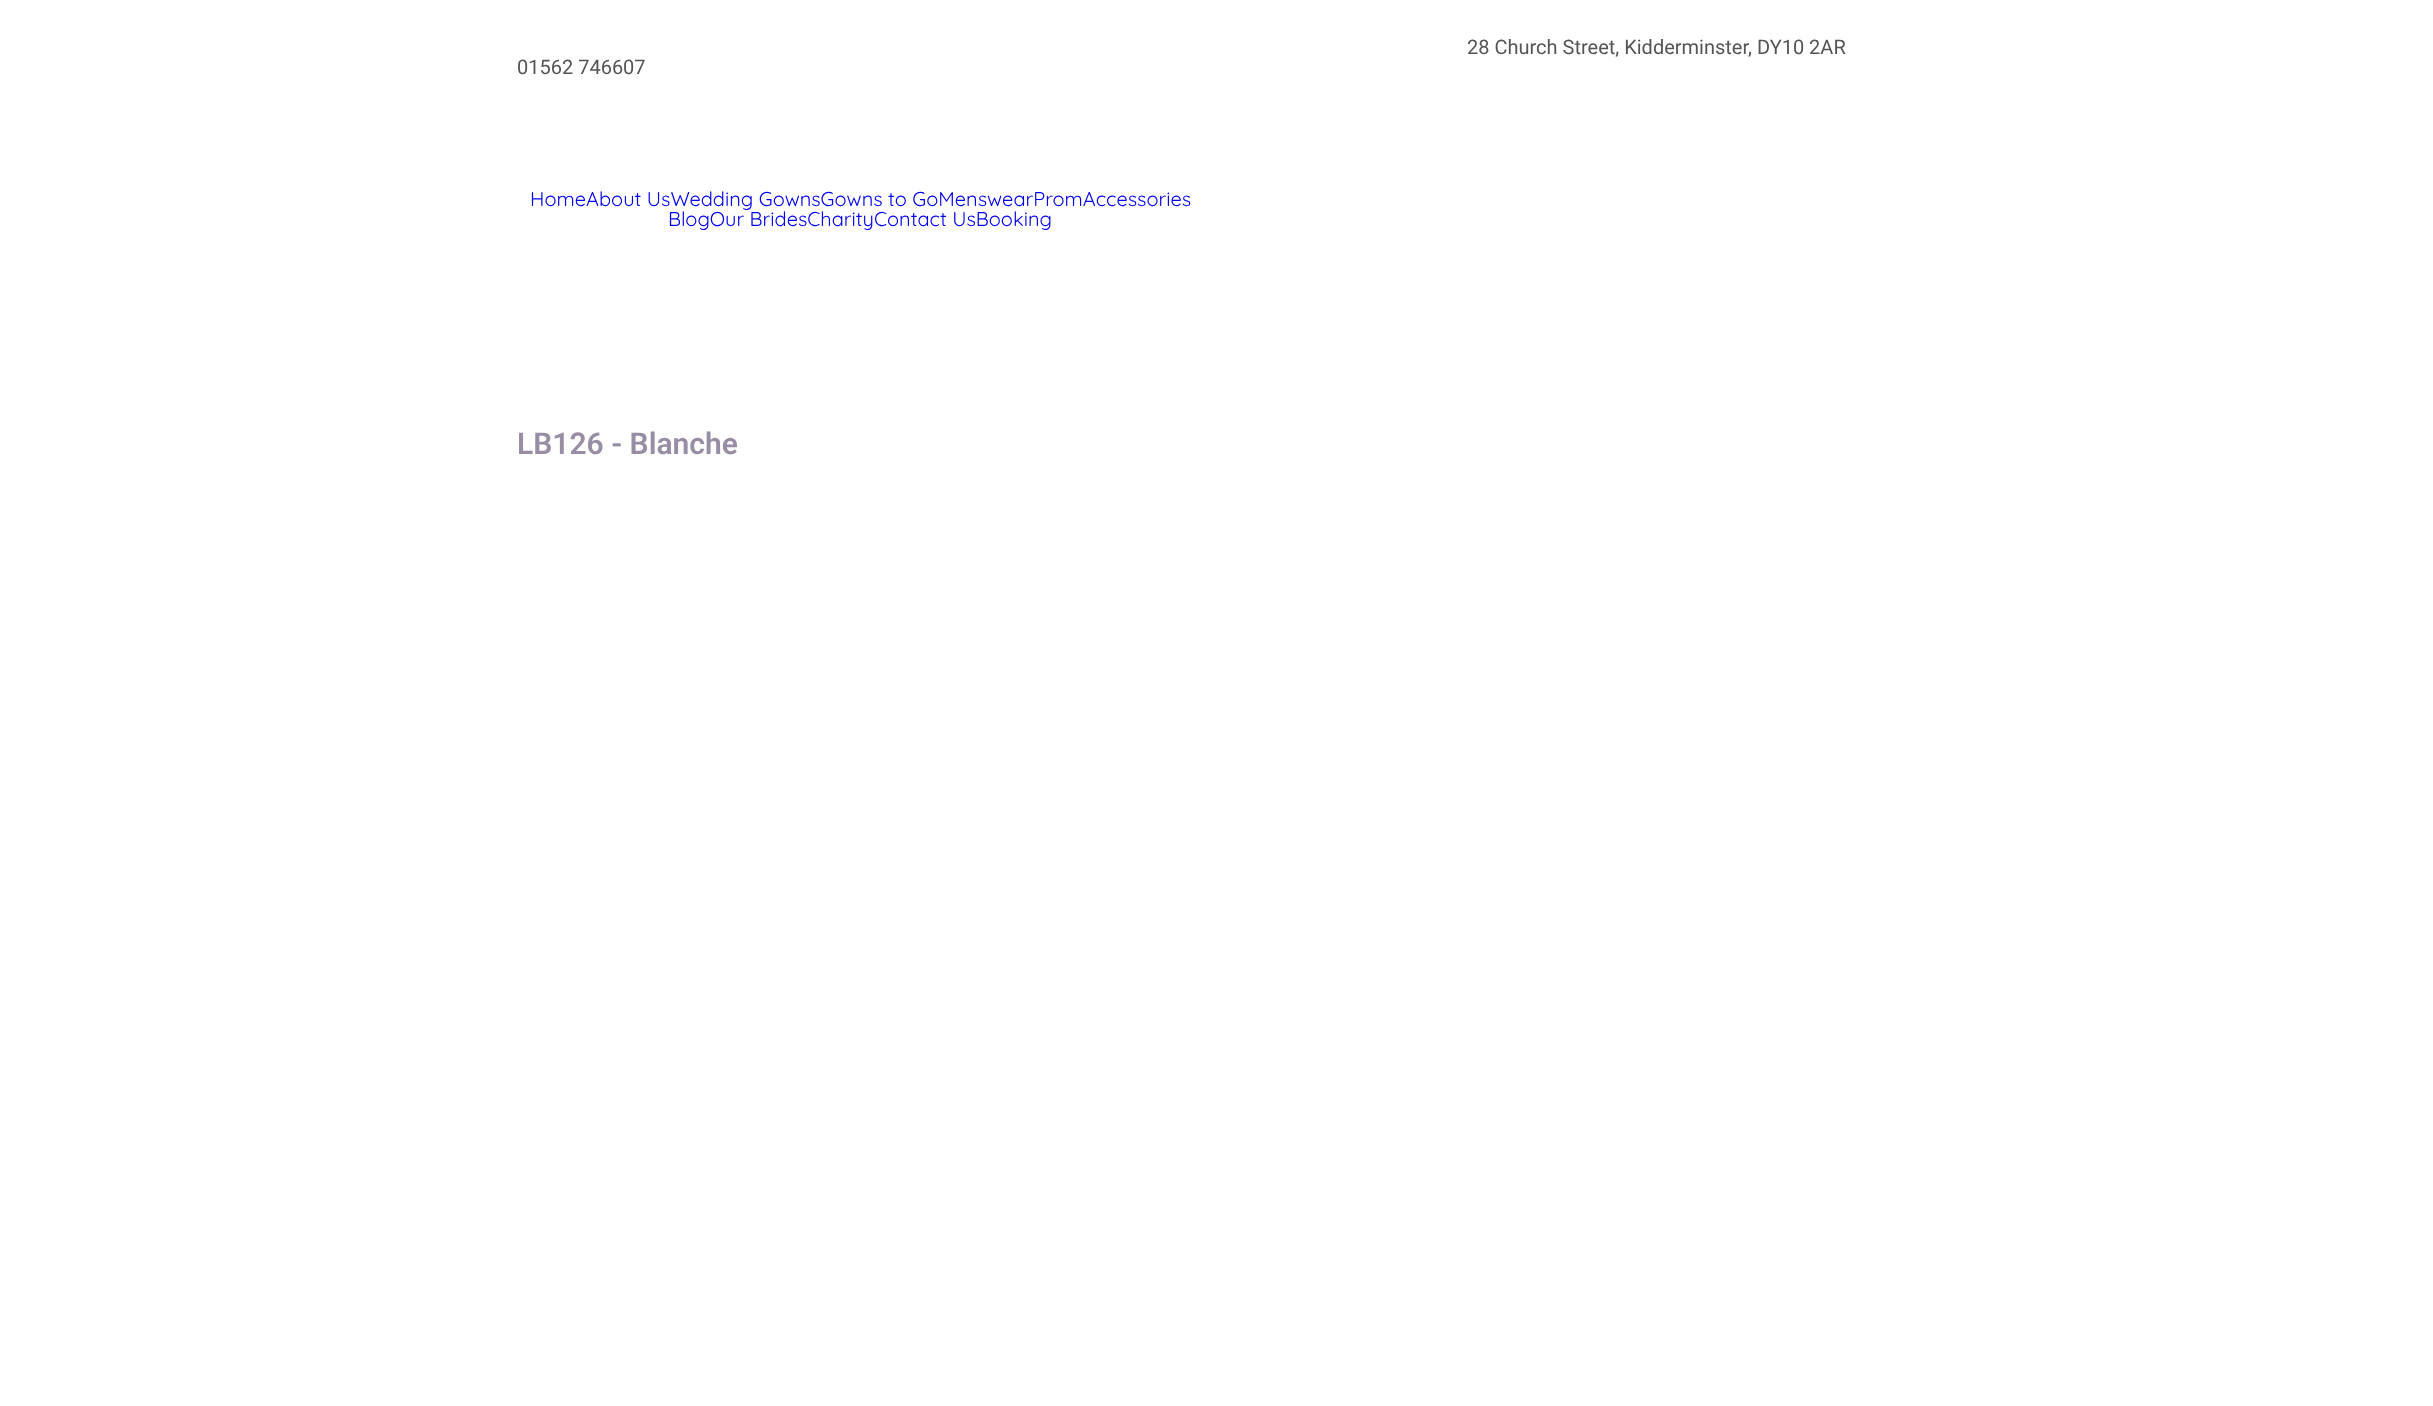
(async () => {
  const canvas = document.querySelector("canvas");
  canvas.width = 2433;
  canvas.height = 1406;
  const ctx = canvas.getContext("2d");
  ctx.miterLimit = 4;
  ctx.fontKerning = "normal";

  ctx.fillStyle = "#ffffff";
  ctx.fillRect(0, 0, 2433, 1406);
  ctx.font = "20px Roboto";
  ctx.fillStyle = "#555555";
  ctx.fillText("28 Church Street, Kidderminster, DY10 2AR", 1467, 54);
  ctx.fillText("01562 746607", 517, 74);
  ctx.font = "20px Quicksand";
  ctx.fillStyle = "#0000ee";
  ctx.fillText("HomeAbout UsWedding GownsGowns to GoMenswearPromAccessories", 530, 206);
  ctx.fillText("BlogOur BridesCharityContact UsBooking", 668, 226);
  ctx.font = "600 30px Roboto";
  ctx.fillStyle = "#988da4";
  ctx.fillText("LB126 - Blanche", 517, 454);
})();
